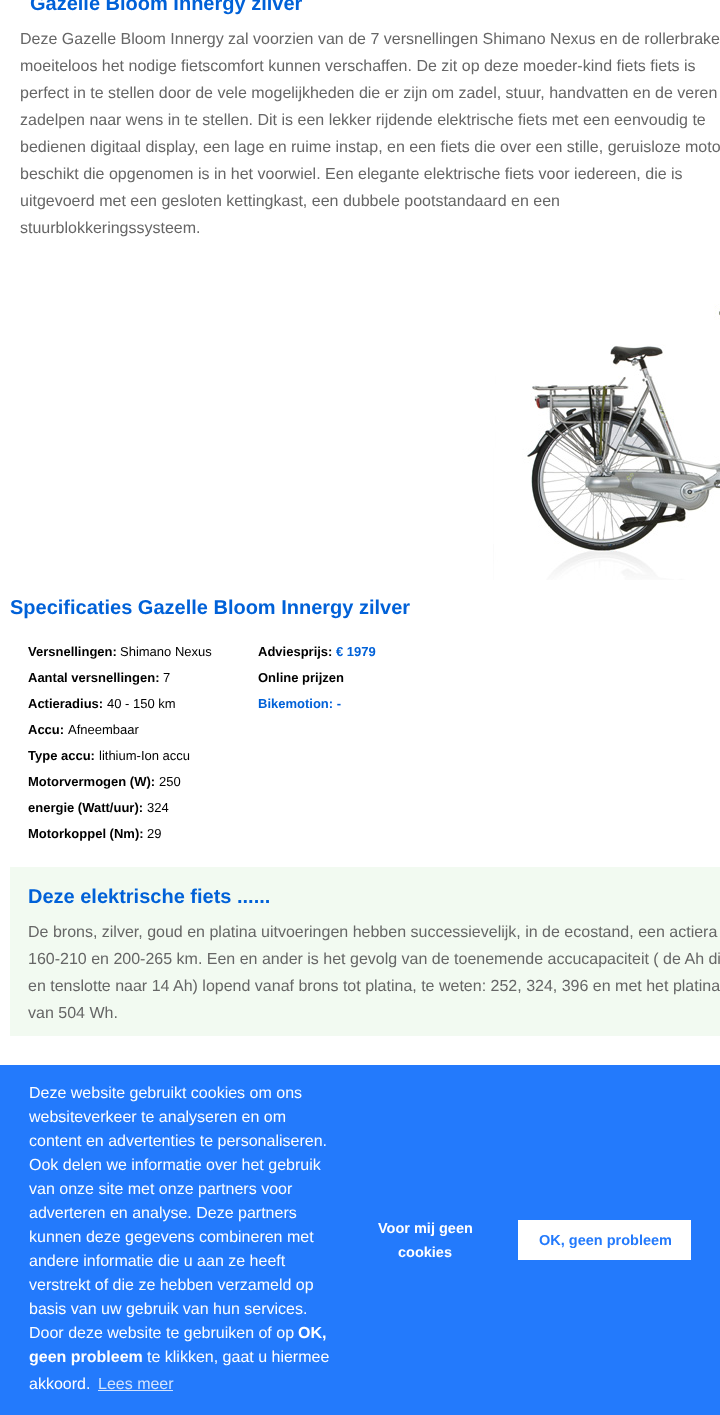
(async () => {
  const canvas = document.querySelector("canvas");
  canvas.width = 720;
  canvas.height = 1415;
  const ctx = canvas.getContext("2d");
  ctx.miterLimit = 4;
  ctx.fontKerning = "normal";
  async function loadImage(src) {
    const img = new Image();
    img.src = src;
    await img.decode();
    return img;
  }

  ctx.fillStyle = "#ffffff";
  ctx.fillRect(0, 0, 720, 1415);
  ctx.drawImage(await loadImage("img/1.png"), 493, 304, 227, 276);
  for (const [x, y, w, h, color] of [
    [10, 867, 710, 169, "#f2faf1"],
    [0, 1065, 720, 350, "#237afc"],
    [98, 1390, 75, 1, "#d3e4fe"],
    [518, 1220, 173, 40, "#ffffff"],
  ]) {
    ctx.fillStyle = color;
    ctx.fillRect(x, y, w, h);
  }
  ctx.font = "bold 20px Liberation Sans";
  ctx.fillStyle = "#0061d8";
  ctx.fillText("Gazelle Bloom Innergy zilver", 30, 10);
  ctx.font = "16px Liberation Sans";
  ctx.fillStyle = "#666666";
  for (const [text, x, y] of [
    ["Deze Gazelle Bloom Innergy zal voorzien van de 7 versnellingen Shimano Nexus en de rollerbrake", 20, 44],
    ["moeiteloos het nodige fietscomfort kunnen verschaffen. De zit op deze moeder-kind fiets fiets is", 20, 71],
    ["perfect in te stellen door de vele mogelijkheden die er zijn om zadel, stuur, handvatten en de veren", 20, 98],
    ["zadelpen naar wens in te stellen. Dit is een lekker rijdende elektrische fiets met een eenvoudig te", 20, 125],
    ["bedienen digitaal display, een lage en ruime instap, en een fiets die over een stille, geruisloze moto", 20, 152],
    ["beschikt die opgenomen is in het voorwiel. Een elegante elektrische fiets voor iedereen, die is", 20, 179],
    ["uitgevoerd met een gesloten kettingkast, een dubbele pootstandaard en een", 20, 206],
    ["stuurblokkeringssysteem.", 20, 233],
  ]) {
    ctx.fillText(text, x, y);
  }
  ctx.font = "bold 20px Liberation Sans";
  ctx.fillStyle = "#0061d8";
  ctx.fillText("Specificaties Gazelle Bloom Innergy zilver", 10, 614);
  ctx.font = "bold 13px Liberation Sans";
  ctx.fillStyle = "#000000";
  ctx.fillText("Versnellingen:", 28, 656);
  ctx.font = "13px Liberation Sans";
  ctx.fillText("Shimano Nexus", 120, 656);
  ctx.font = "bold 13px Liberation Sans";
  ctx.fillText("Aantal versnellingen:", 28, 682);
  ctx.font = "13px Liberation Sans";
  ctx.fillText("7", 163, 682);
  ctx.font = "bold 13px Liberation Sans";
  ctx.fillText("Actieradius:", 28, 708);
  ctx.font = "13px Liberation Sans";
  ctx.fillText("40 - 150 km", 107, 708);
  ctx.font = "bold 13px Liberation Sans";
  ctx.fillText("Accu:", 28, 734);
  ctx.font = "13px Liberation Sans";
  ctx.fillText("Afneembaar", 68, 734);
  ctx.font = "bold 13px Liberation Sans";
  ctx.fillText("Type accu:", 28, 760);
  ctx.font = "13px Liberation Sans";
  ctx.fillText("lithium-Ion accu", 99, 760);
  ctx.font = "bold 13px Liberation Sans";
  ctx.fillText("Motorvermogen (W):", 28, 786);
  ctx.font = "13px Liberation Sans";
  ctx.fillText("250", 159, 786);
  ctx.font = "bold 13px Liberation Sans";
  ctx.fillText("energie (Watt/uur):", 28, 812);
  ctx.font = "13px Liberation Sans";
  ctx.fillText("324", 147, 812);
  ctx.font = "bold 13px Liberation Sans";
  ctx.fillText("Motorkoppel (Nm):", 28, 838);
  ctx.font = "13px Liberation Sans";
  ctx.fillText("29", 147, 838);
  ctx.font = "bold 13px Liberation Sans";
  ctx.fillText("Adviesprijs:", 258, 656);
  ctx.fillStyle = "#0061d8";
  ctx.fillText("€ 1979", 336, 656);
  ctx.fillStyle = "#000000";
  ctx.fillText("Online prijzen", 258, 682);
  ctx.fillStyle = "#0061d8";
  ctx.fillText("Bikemotion: -", 258, 708);
  ctx.font = "bold 20px Liberation Sans";
  ctx.fillText("Deze elektrische fiets ......", 28, 903);
  ctx.font = "16px Liberation Sans";
  ctx.fillStyle = "#666666";
  for (const [text, x, y] of [
    ["De brons, zilver, goud en platina uitvoeringen hebben successievelijk, in de ecostand, een actiera", 28, 937],
    ["160-210 en 200-265 km. Een en ander is het gevolg van de toenemende accucapaciteit ( de Ah di", 28, 964],
    ["en tenslotte naar 14 Ah) lopend vanaf brons tot platina, te weten: 252, 324, 396 en met het platina", 28, 991],
    ["van 504 Wh.", 28, 1018],
  ]) {
    ctx.fillText(text, x, y);
  }
  ctx.fillStyle = "#ffffff";
  for (const [text, x, y] of [
    ["Deze website gebruikt cookies om ons", 29, 1098],
    ["websiteverkeer te analyseren en om", 29, 1122],
    ["content en advertenties te personaliseren.", 29, 1146],
    ["Ook delen we informatie over het gebruik", 29, 1170],
    ["van onze site met onze partners voor", 29, 1194],
    ["adverteren en analyse. Deze partners", 29, 1218],
    ["kunnen deze gegevens combineren met", 29, 1242],
    ["andere informatie die u aan ze heeft", 29, 1266],
    ["verstrekt of die ze hebben verzameld op", 29, 1290],
    ["basis van uw gebruik van hun services.", 29, 1314],
    ["Door deze website te gebruiken of op", 29, 1338],
  ]) {
    ctx.fillText(text, x, y);
  }
  ctx.font = "bold 16px Liberation Sans";
  ctx.fillText("OK,", 298, 1338);
  ctx.fillText("geen probleem", 29, 1362);
  ctx.font = "16px Liberation Sans";
  ctx.fillText("te klikken, gaat u hiermee", 147, 1362);
  ctx.fillText("akkoord.", 29, 1389);
  ctx.fillStyle = "#d3e4fe";
  ctx.fillText("Lees meer", 98, 1389);
  ctx.font = "bold 14.5px Liberation Sans";
  ctx.fillStyle = "#ffffff";
  ctx.fillText("Voor mij geen", 378, 1233);
  ctx.fillText("cookies", 398, 1257);
  ctx.fillStyle = "#237afc";
  ctx.fillText("OK, geen probleem", 539, 1245);
})();
